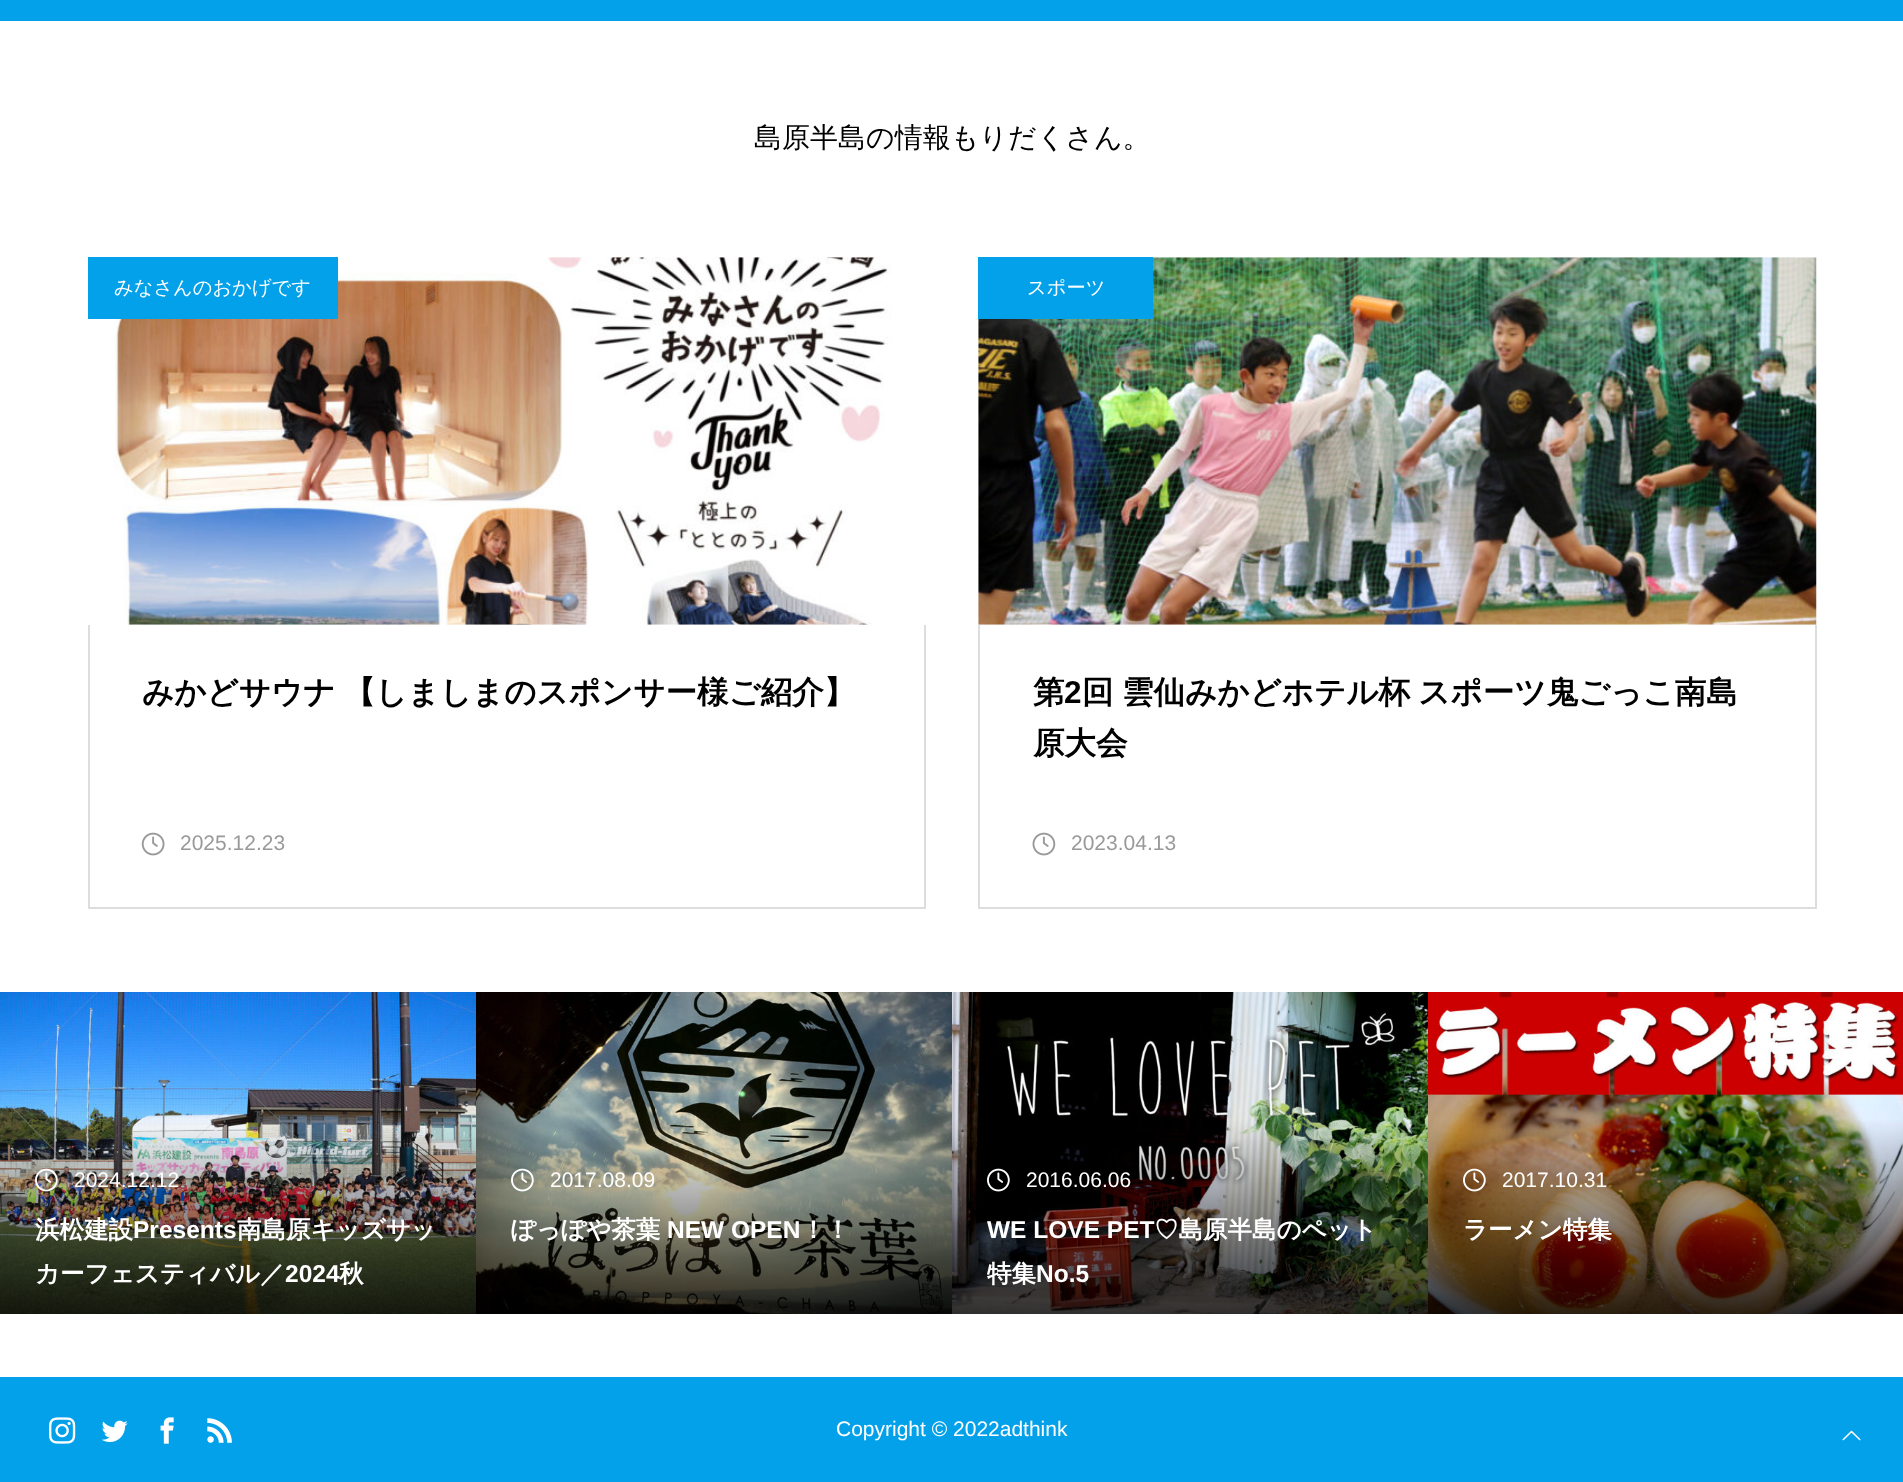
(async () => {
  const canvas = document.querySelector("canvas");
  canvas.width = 1903;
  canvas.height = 1482;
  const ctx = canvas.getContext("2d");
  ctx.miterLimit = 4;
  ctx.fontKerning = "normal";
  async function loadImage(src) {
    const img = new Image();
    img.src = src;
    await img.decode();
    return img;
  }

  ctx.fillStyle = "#ffffff";
  ctx.fillRect(0, 0, 1903, 1482);
  ctx.fillStyle = "#03a1ea";
  ctx.fillRect(0, 0, 1903, 21);
  ctx.drawImage(await loadImage("img/1.png"), 114, 257, 778, 368);
  for (const [x, y, w, h, color] of [
    [88, 257, 250, 62, "#03a1ea"],
    [924, 625, 2, 283, "#dddddd"],
    [88, 907, 838, 2, "#dddddd"],
    [88, 625, 2, 283, "#dddddd"],
  ]) {
    ctx.fillStyle = color;
    ctx.fillRect(x, y, w, h);
  }
  ctx.drawImage(await loadImage("img/2.png"), 141, 832, 24, 24);
  ctx.drawImage(await loadImage("img/3.png"), 978, 257, 839, 368);
  for (const [x, y, w, h, color] of [
    [978, 257, 175, 62, "#03a1ea"],
    [1815, 625, 2, 283, "#dddddd"],
    [978, 907, 839, 2, "#dddddd"],
    [978, 625, 2, 283, "#dddddd"],
  ]) {
    ctx.fillStyle = color;
    ctx.fillRect(x, y, w, h);
  }
  ctx.drawImage(await loadImage("img/4.png"), 1032, 832, 24, 24);
  ctx.drawImage(await loadImage("img/5.png"), 0, 992, 476, 322);
  ctx.drawImage(await loadImage("img/6.png"), 35, 1168, 23, 24);
  ctx.drawImage(await loadImage("img/7.png"), 476, 992, 476, 322);
  ctx.drawImage(await loadImage("img/8.png"), 511, 1168, 23, 24);
  ctx.drawImage(await loadImage("img/9.png"), 952, 992, 476, 322);
  ctx.drawImage(await loadImage("img/10.png"), 987, 1168, 23, 24);
  ctx.drawImage(await loadImage("img/11.png"), 1428, 992, 475, 322);
  ctx.drawImage(await loadImage("img/12.png"), 1463, 1168, 23, 24);
  ctx.fillStyle = "#03a1ea";
  ctx.fillRect(0, 1377, 1903, 105);
  ctx.drawImage(await loadImage("img/13.png"), 49, 1417, 27, 27);
  ctx.drawImage(await loadImage("img/14.png"), 101, 1420, 27, 22);
  ctx.drawImage(await loadImage("img/15.png"), 160, 1417, 14, 27);
  ctx.drawImage(await loadImage("img/16.png"), 207, 1418, 25, 25);
  ctx.drawImage(await loadImage("img/17.png"), 1842, 1430, 19, 11);
  ctx.font = "500 28px WenQuanYi Zen Hei";
  ctx.fillStyle = "#000000";
  ctx.fillText("島原半島の情報もりだくさん。", 754, 147);
  ctx.font = "500 19.25px WenQuanYi Zen Hei";
  ctx.fillStyle = "#ffffff";
  ctx.fillText("みなさんのおかげです", 114, 294);
  ctx.wordSpacing = "-1px";
  ctx.font = "bold 31.5px WenQuanYi Zen Hei";
  ctx.fillStyle = "#000000";
  ctx.fillText("みかどサウナ 【しましまのスポンサー様ご紹介】", 142, 703);
  ctx.wordSpacing = "0px";
  ctx.font = "21px Liberation Sans";
  ctx.fillStyle = "#999999";
  ctx.fillText("2025.12.23", 180, 850);
  ctx.font = "500 19.25px WenQuanYi Zen Hei";
  ctx.fillStyle = "#ffffff";
  ctx.fillText("スポーツ", 1027, 294);
  ctx.font = "bold 31.5px WenQuanYi Zen Hei";
  ctx.fillStyle = "#000000";
  ctx.fillText("第", 1033, 703);
  ctx.font = "bold 31.5px Liberation Sans";
  ctx.fillText("2", 1064, 703);
  ctx.wordSpacing = "-1px";
  ctx.font = "bold 31.5px WenQuanYi Zen Hei";
  ctx.fillText("回 雲仙みかどホテル杯 スポーツ鬼ごっこ南島", 1082, 703);
  ctx.wordSpacing = "0px";
  ctx.fillText("原大会", 1033, 754);
  ctx.font = "21px Liberation Sans";
  ctx.fillStyle = "#999999";
  ctx.fillText("2023.04.13", 1071, 850);
  ctx.fillStyle = "#ffffff";
  ctx.fillText("2024.12.12", 74, 1187);
  ctx.font = "bold 24.5px WenQuanYi Zen Hei";
  ctx.fillText("浜松建設", 35, 1238);
  ctx.font = "bold 24.5px Liberation Sans";
  ctx.fillText("Presents", 133, 1238);
  ctx.font = "bold 24.5px WenQuanYi Zen Hei";
  ctx.fillText("南島原キッズサッ", 237, 1238);
  ctx.fillText("カーフェスティバル／", 35, 1282);
  ctx.font = "bold 24.5px Liberation Sans";
  ctx.fillText("2024", 285, 1282);
  ctx.font = "bold 24.5px WenQuanYi Zen Hei";
  ctx.fillText("秋", 339, 1282);
  ctx.font = "21px Liberation Sans";
  ctx.fillText("2017.08.09", 550, 1187);
  ctx.font = "bold 24.5px WenQuanYi Zen Hei";
  ctx.fillText("ぽっぽや茶葉", 511, 1238);
  ctx.font = "bold 24.5px Liberation Sans";
  ctx.fillText("NEW OPEN", 667, 1238);
  ctx.font = "bold 24.5px WenQuanYi Zen Hei";
  ctx.fillText("！！", 801, 1238);
  ctx.font = "21px Liberation Sans";
  ctx.fillText("2016.06.06", 1026, 1187);
  ctx.font = "bold 24.5px Liberation Sans";
  ctx.fillText("WE LOVE PET", 987, 1238);
  ctx.font = "bold 24.5px WenQuanYi Zen Hei";
  ctx.fillText("♡島原半島のペット", 1154, 1238);
  ctx.fillText("特集", 987, 1282);
  ctx.font = "bold 24.5px Liberation Sans";
  ctx.fillText("No.5", 1036, 1282);
  ctx.font = "21px Liberation Sans";
  ctx.fillText("2017.10.31", 1502, 1187);
  ctx.font = "bold 24.5px WenQuanYi Zen Hei";
  ctx.fillText("ラーメン特集", 1463, 1238);
  ctx.font = "21px Liberation Sans";
  ctx.fillText("Copyright © 2022adthink", 836, 1436);
})();
